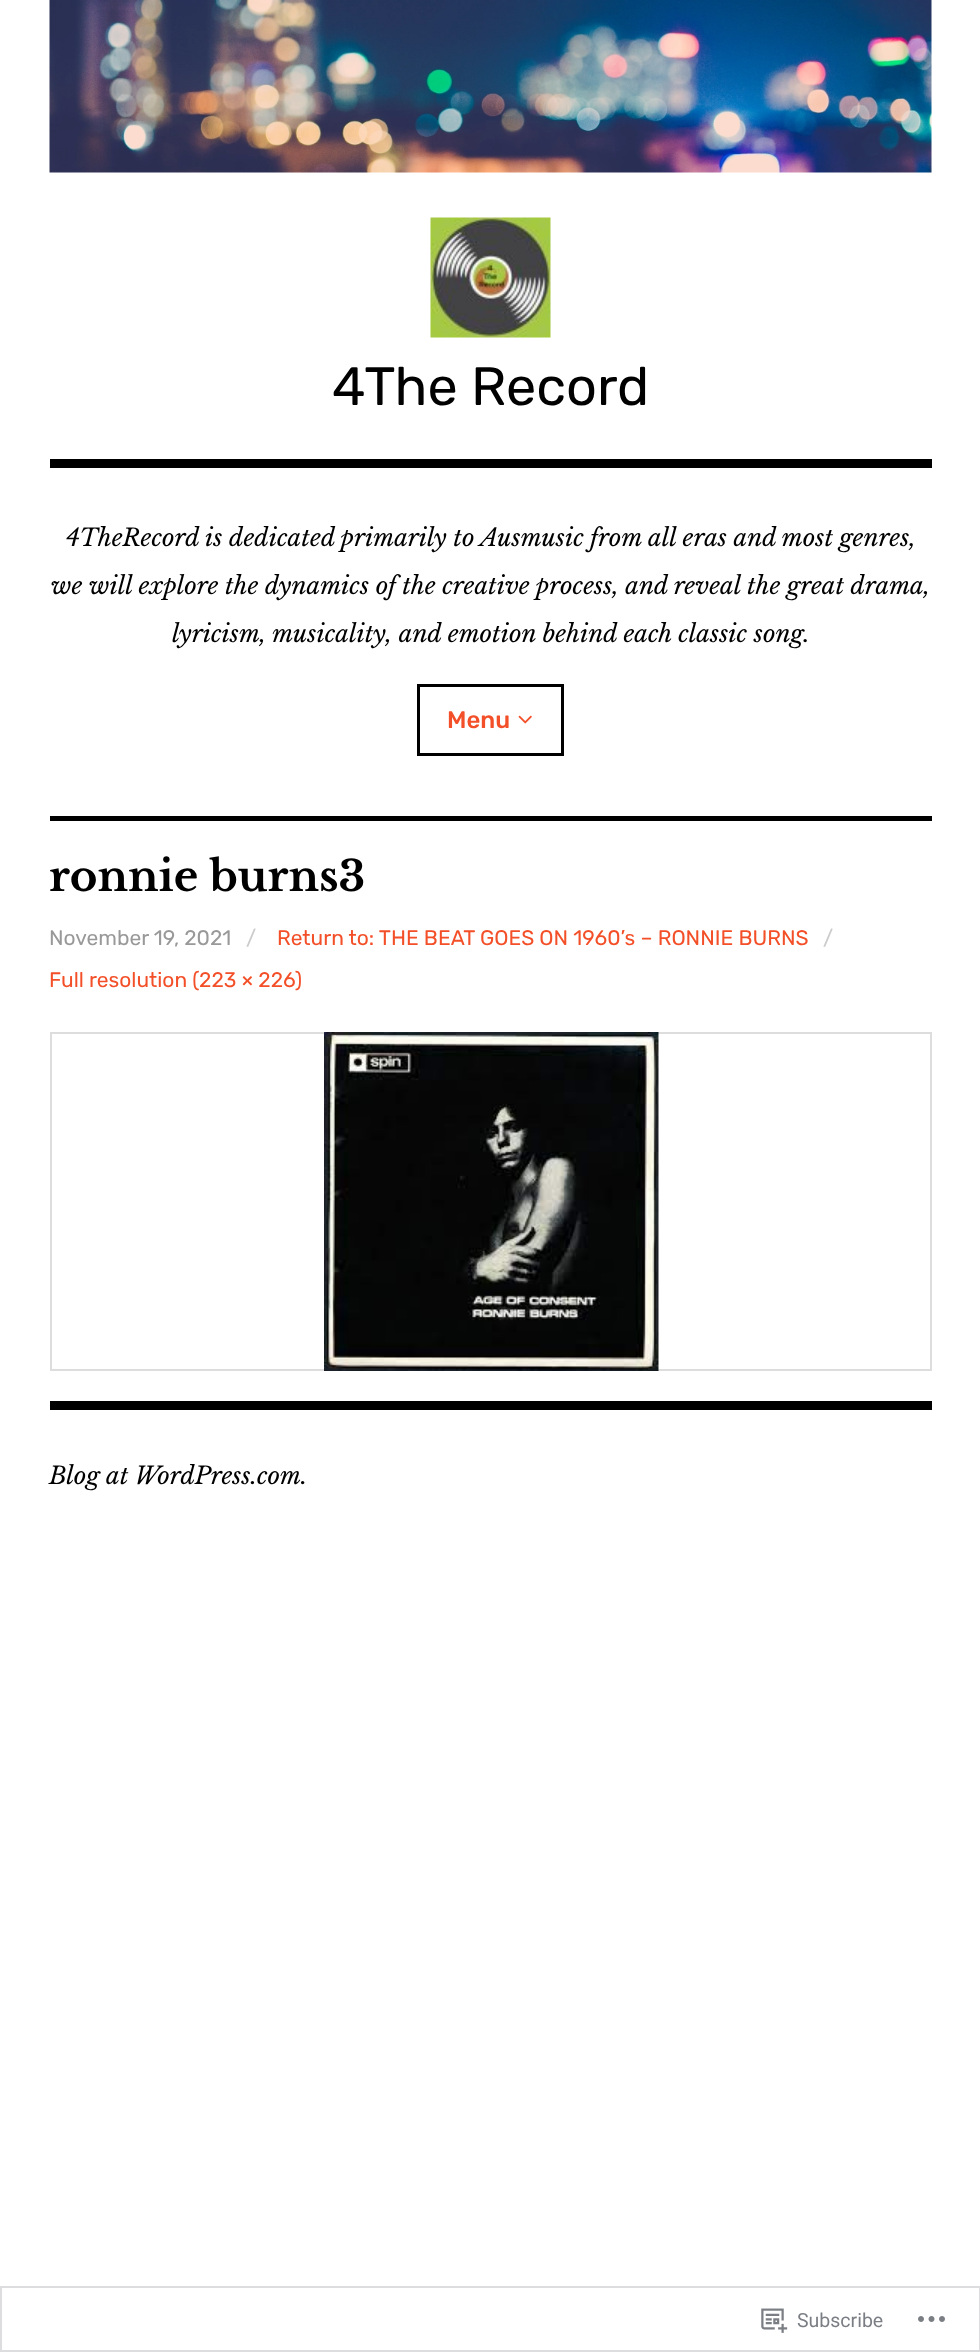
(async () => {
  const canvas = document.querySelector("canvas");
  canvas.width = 980;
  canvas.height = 2352;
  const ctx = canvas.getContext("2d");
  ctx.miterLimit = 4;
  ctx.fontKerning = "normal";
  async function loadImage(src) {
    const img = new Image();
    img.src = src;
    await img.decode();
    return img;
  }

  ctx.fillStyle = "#ffffff";
  ctx.fillRect(0, 0, 980, 2352);
  ctx.drawImage(await loadImage("img/1.png"), 49, 0, 883, 173);
  ctx.fillStyle = "#000000";
  ctx.fillRect(50, 459, 882, 9);
  ctx.drawImage(await loadImage("img/2.png"), 430, 217, 121, 121);
  ctx.strokeStyle = "#000000";
  ctx.lineWidth = 3;
  ctx.strokeRect(418.5, 685.5, 144, 69);
  ctx.drawImage(await loadImage("img/3.png"), 518, 715, 14, 9);
  ctx.fillRect(50, 816, 882, 5);
  ctx.strokeStyle = "#dddddd";
  ctx.lineWidth = 2;
  ctx.strokeRect(51, 1033, 880, 337);
  ctx.drawImage(await loadImage("img/4.png"), 324, 1032, 335, 339);
  ctx.fillRect(50, 1401, 882, 9);
  ctx.strokeStyle = "#dddddf";
  ctx.strokeRect(1, 2287, 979, 64);
  ctx.drawImage(await loadImage("img/5.png"), 761, 2308, 27, 25);
  ctx.drawImage(await loadImage("img/6.png"), 918, 2316, 27, 6);
  ctx.font = "54px Rubik";
  ctx.fillText("4The Record", 332, 405);
  ctx.font = "italic 24px Libre Baskerville";
  for (const [text, x, y] of [
    ["4TheRecord is dedicated primarily to Ausmusic from all eras and most genres,", 66, 546],
    ["we", 51, 594],
    ["will explore the dynamics of the creative process, and reveal the great drama,", 89, 594],
    ["lyricism, musicality, and emotion behind each classic song.", 172, 642],
  ]) {
    ctx.fillText(text, x, y);
  }
  ctx.font = "500 24px Rubik";
  ctx.fillStyle = "#f35029";
  ctx.fillText("Menu", 447, 728);
  ctx.font = "bold 42px Libre Baskerville";
  ctx.fillStyle = "#000000";
  ctx.fillText("ronnie burns3", 49, 891);
  ctx.font = "21px Rubik";
  ctx.fillStyle = "#999999";
  ctx.fillText("November 19, 2021", 49, 945);
  ctx.fillStyle = "#cccccc";
  ctx.fillText("/", 246, 945);
  ctx.fillStyle = "#f35029";
  ctx.fillText("Return to: THE BEAT GOES ON 1960’s – RONNIE BURNS", 277, 945);
  ctx.fillStyle = "#cccccc";
  ctx.fillText("/", 823, 945);
  ctx.fillStyle = "#f35029";
  ctx.fillText("Full resolution (223 × 226)", 49, 987);
  ctx.font = "italic 24px Libre Baskerville";
  ctx.fillStyle = "#000000";
  ctx.fillText("Blog at WordPress.com.", 49, 1484);
  ctx.font = "19.5px Roboto";
  ctx.fillStyle = "#7b7f85";
  ctx.fillText("Subscribe", 797, 2327);
})();
